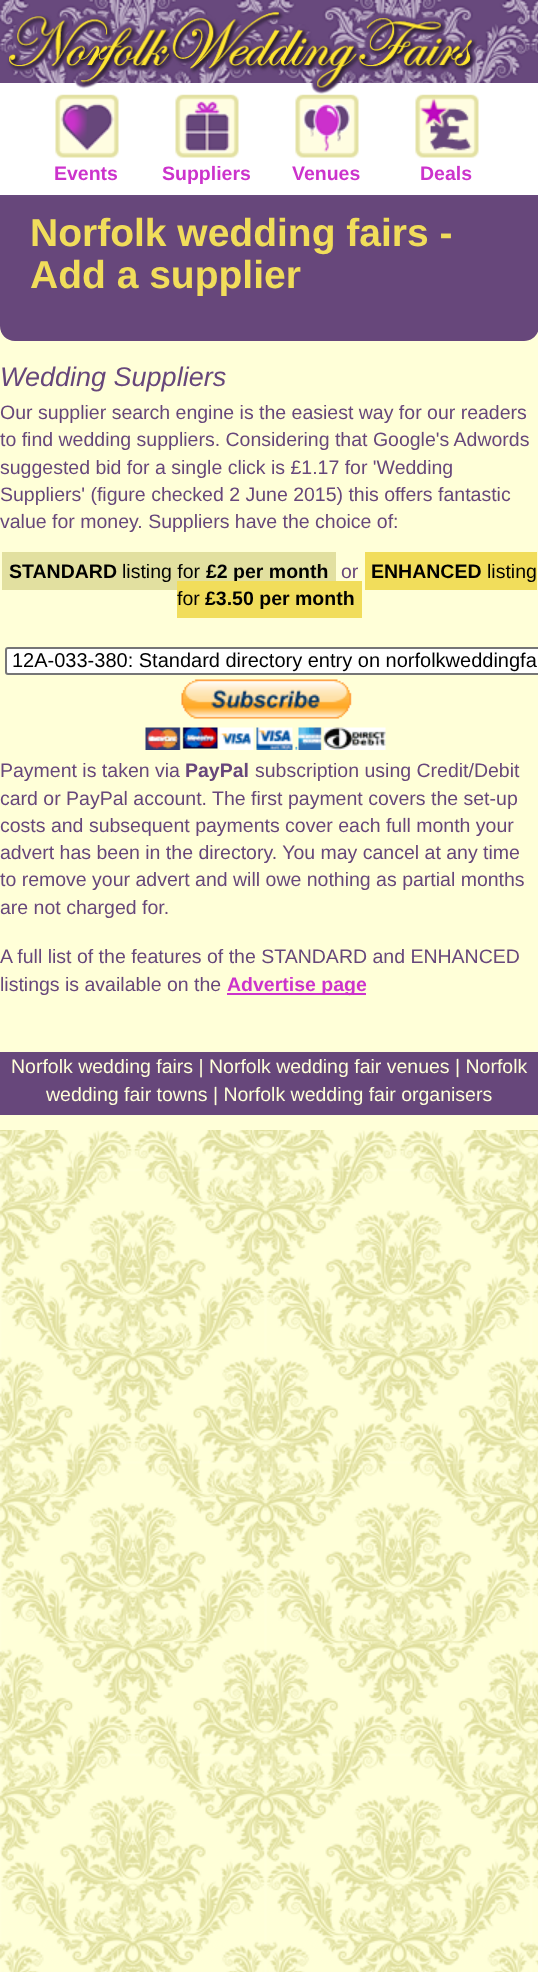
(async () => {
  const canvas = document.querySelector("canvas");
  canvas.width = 538;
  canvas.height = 1972;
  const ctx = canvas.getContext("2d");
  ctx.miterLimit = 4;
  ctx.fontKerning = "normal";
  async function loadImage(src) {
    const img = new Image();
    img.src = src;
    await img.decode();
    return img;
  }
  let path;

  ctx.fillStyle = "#ffffff";
  ctx.fillRect(0, 0, 538, 1972);
  ctx.drawImage(await loadImage("img/1.png"), 0, 1130, 538, 842);
  ctx.drawImage(await loadImage("img/2.png"), 0, 0, 538, 83);
  ctx.fillStyle = "#68497d";
  ctx.fillRect(0, 195, 538, 2);
  ctx.drawImage(await loadImage("img/3.png"), 6, 6, 471, 88);
  ctx.drawImage(await loadImage("img/4.png"), 55, 94, 64, 64);
  ctx.drawImage(await loadImage("img/5.png"), 175, 94, 64, 64);
  ctx.drawImage(await loadImage("img/6.png"), 295, 94, 64, 64);
  ctx.drawImage(await loadImage("img/7.png"), 415, 94, 64, 64);
  ctx.fillStyle = "#ffffd8";
  ctx.fillRect(0, 326, 538, 804);
  ctx.fillStyle = "#67477b";
  path = new Path2D("M0 197H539V326C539 334.5 532.5 341 524 341H15C6.5 341 0 334.5 0 326Z");
  ctx.fill(path);
  for (const [x, y, w, h, color] of [
    [2, 552, 204, 38, "#e2e0a0"],
    [206, 552, 130, 29, "#e2e0a0"],
    [365, 552, 172, 38, "#f1dd5b"],
  ]) {
    ctx.fillStyle = color;
    ctx.fillRect(x, y, w, h);
  }
  ctx.fillStyle = "#ffffff";
  path = new Path2D("M8 647H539V675H8C6.5 675 5 673.5 5 672V650C5 648.5 6.5 647 8 647Z");
  ctx.fill(path);
  ctx.beginPath();
  ctx.roundRect(6, 648, 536, 26, 2);
  ctx.strokeStyle = "#767676";
  ctx.lineWidth = 2;
  ctx.stroke();
  ctx.drawImage(await loadImage("img/8.png"), 145, 679, 241, 71);
  ctx.fillStyle = "#cc33cc";
  ctx.fillRect(227, 993, 139, 2);
  ctx.fillStyle = "#67477b";
  ctx.fillRect(0, 1052, 538, 63);
  ctx.font = "bold 19.5px Liberation Sans";
  ctx.fillStyle = "#cc33cc";
  for (const [text, x, y] of [
    ["Events", 54, 180],
    ["Suppliers", 162, 180],
    ["Venues", 292, 180],
    ["Deals", 420, 180],
  ]) {
    ctx.fillText(text, x, y);
  }
  ctx.font = "bold 39px Liberation Sans";
  ctx.fillStyle = "#f1dd5b";
  ctx.fillText("Norfolk wedding fairs -", 30, 246);
  ctx.fillText("Add a supplier", 30, 288);
  ctx.font = "italic 27px Liberation Sans";
  ctx.fillStyle = "#67477b";
  ctx.fillText("Wedding Suppliers", 0, 386);
  ctx.font = "19.5px Liberation Sans";
  for (const [text, x, y] of [
    ["Our supplier search engine is the easiest way for our readers", 0, 419],
    ["to find wedding suppliers. Considering that Google's Adwords", 0, 446],
    ["suggested bid for a single click is £1.17 for 'Wedding", 0, 474],
    ["Suppliers' (figure checked 2 June 2015) this offers fantastic", 0, 501],
    ["value for money. Suppliers have the choice of:", 0, 528],
  ]) {
    ctx.fillText(text, x, y);
  }
  ctx.font = "bold 19.5px Liberation Sans";
  ctx.fillStyle = "#000000";
  ctx.fillText("STANDARD", 9, 578);
  ctx.font = "19.5px Liberation Sans";
  ctx.fillText("listing for", 122, 578);
  ctx.font = "bold 19.5px Liberation Sans";
  ctx.fillText("£2 per month", 206, 578);
  ctx.font = "19.5px Liberation Sans";
  ctx.fillStyle = "#67477b";
  ctx.fillText("or", 341, 578);
  ctx.font = "bold 19.5px Liberation Sans";
  ctx.fillStyle = "#000000";
  ctx.fillText("ENHANCED", 371, 578);
  ctx.font = "19.5px Liberation Sans";
  ctx.fillText("listing", 487, 578);
  ctx.fillStyle = "#f1dd5b";
  ctx.fillRect(177, 581, 185, 37);
  ctx.font = "bold 19.5px Liberation Sans";
  ctx.fillStyle = "#000000";
  ctx.fillText("£3.50 per month", 205, 605);
  ctx.font = "19.5px Liberation Sans";
  ctx.fillText("for", 177, 605);
  ctx.font = "20px Liberation Sans";
  ctx.fillText("12A-033-380: Standard directory entry on norfolkweddingfa", 12, 667);
  ctx.font = "19.5px Liberation Sans";
  ctx.fillStyle = "#67477b";
  ctx.fillText("Payment is taken via", 0, 777);
  ctx.font = "bold 19.5px Liberation Sans";
  ctx.fillText("PayPal", 185, 777);
  ctx.font = "19.5px Liberation Sans";
  for (const [text, x, y] of [
    ["subscription using Credit/Debit", 255, 777],
    ["card or PayPal account. The first payment covers the set-up", 0, 805],
    ["costs and subsequent payments cover each full month your", 0, 832],
    ["advert has been in the directory. You may cancel at any time", 0, 859],
    ["to remove your advert and will owe nothing as partial months", 0, 886],
    ["are not charged for.", 0, 914],
    ["A full list of the features of the STANDARD and ENHANCED", 0, 963],
    ["listings is available on the", 0, 991],
  ]) {
    ctx.fillText(text, x, y);
  }
  ctx.font = "bold 19.5px Liberation Sans";
  ctx.fillStyle = "#cc33cc";
  ctx.fillText("Advertise page", 227, 991);
  ctx.font = "19.5px Liberation Sans";
  ctx.fillStyle = "#ffffd8";
  ctx.fillText("Norfolk wedding fairs | Norfolk wedding fair venues | Norfolk", 11, 1073);
  ctx.fillText("wedding fair towns | Norfolk wedding fair organisers", 46, 1101);
})();
